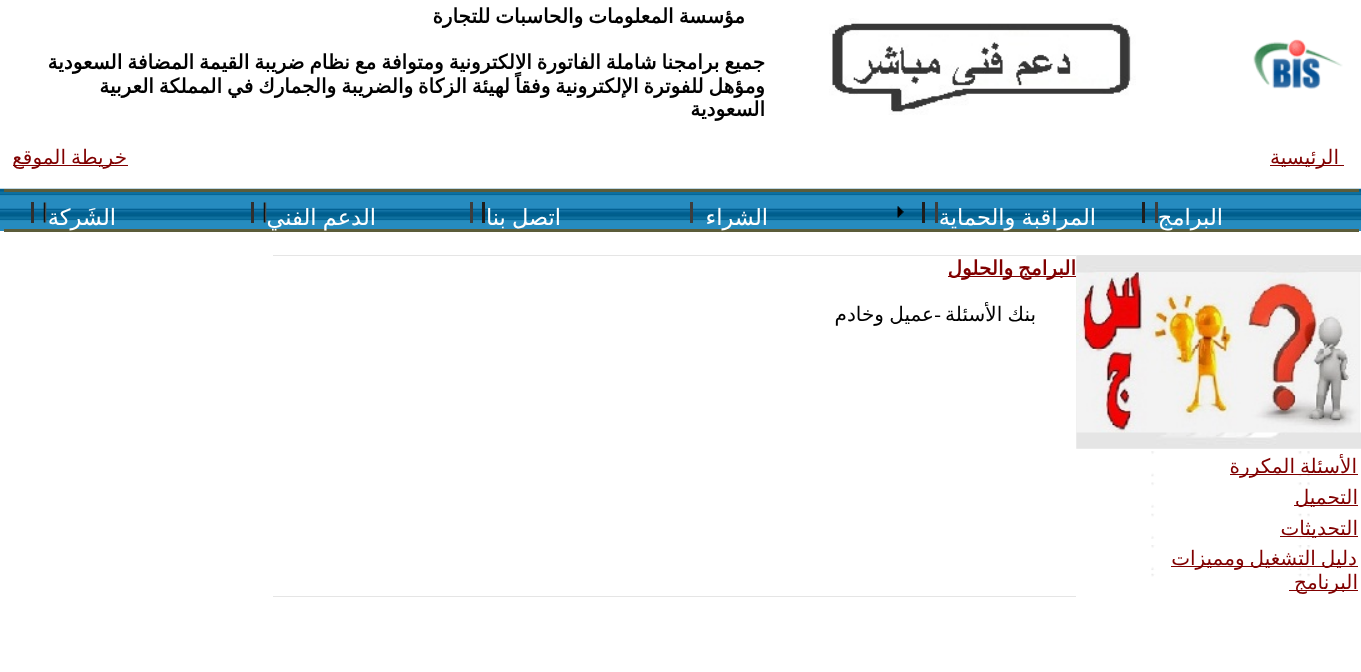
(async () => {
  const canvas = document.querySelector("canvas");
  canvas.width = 1361;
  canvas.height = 672;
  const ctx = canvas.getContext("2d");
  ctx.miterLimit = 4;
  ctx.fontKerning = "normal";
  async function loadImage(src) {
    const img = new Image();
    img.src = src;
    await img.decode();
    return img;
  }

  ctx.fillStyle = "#ffffff";
  ctx.fillRect(0, 0, 1361, 672);
  ctx.drawImage(await loadImage("img/1.png"), 1253, 39, 90, 50);
  ctx.drawImage(await loadImage("img/2.png"), 829, 18, 307, 97);
  ctx.fillStyle = "#800000";
  ctx.fillRect(1270, 165, 74, 1);
  ctx.fillRect(13, 165, 115, 1);
  ctx.drawImage(await loadImage("img/3.png"), 0, 188, 1361, 43);
  for (const [x, y, w, h, color] of [
    [4, 189, 1355, 3, "#5b5c3a"],
    [4, 229, 1355, 3, "#5b5c3a"],
    [1142, 202, 3, 21, "#1e1e1e"],
    [1155, 202, 3, 21, "#3d3d3d"],
    [922, 202, 3, 21, "#1e1e1e"],
    [935, 202, 3, 21, "#3d3d3d"],
    [690, 202, 3, 21, "#3d3d3d"],
  ]) {
    ctx.fillStyle = color;
    ctx.fillRect(x, y, w, h);
  }
  ctx.drawImage(await loadImage("img/4.png"), 897, 206, 7, 12);
  for (const [x, y, w, h, color] of [
    [470, 202, 3, 21, "#3d3d3d"],
    [482, 202, 3, 21, "#1e1e1e"],
    [251, 202, 3, 21, "#303030"],
  ]) {
    ctx.fillStyle = color;
    ctx.fillRect(x, y, w, h);
  }
  ctx.drawImage(await loadImage("img/5.png"), 263, 202, 4, 21);
  ctx.fillRect(31, 202, 3, 21);
  ctx.drawImage(await loadImage("img/5.png"), 43, 202, 4, 21);
  for (const [x, y, w, h, color] of [
    [273, 255, 803, 1, "#e5e5e5"],
    [273, 596, 803, 1, "#e5e5e5"],
    [948, 276, 128, 1, "#800000"],
  ]) {
    ctx.fillStyle = color;
    ctx.fillRect(x, y, w, h);
  }
  ctx.drawImage(await loadImage("img/6.png"), 1076, 255, 285, 194);
  ctx.drawImage(await loadImage("img/7.png"), 1076, 272, 285, 161);
  ctx.drawImage(await loadImage("img/8.png"), 1151, 451, 159, 26);
  ctx.fillRect(1230, 474, 128, 1);
  ctx.drawImage(await loadImage("img/9.png"), 1151, 482, 159, 26);
  ctx.fillRect(1294, 505, 64, 1);
  ctx.drawImage(await loadImage("img/10.png"), 1151, 513, 159, 26);
  ctx.fillRect(1280, 536, 78, 1);
  ctx.drawImage(await loadImage("img/11.png"), 1151, 545, 160, 32);
  ctx.fillRect(1171, 566, 187, 1);
  ctx.fillRect(1289, 590, 69, 1);
  ctx.wordSpacing = "-1.4px";
  ctx.direction = "rtl";
  ctx.font = "bold 20px DejaVu Sans";
  ctx.fillStyle = "#000000";
  for (const [text, x, y] of [
    ["مؤسسة المعلومات والحاسبات للتجارة", 745, 23],
    ["جميع برامجنا شاملة الفاتورة الالكترونية ومتوافة مع نظام ضريبة القيمة المضافة السعودية", 765, 69],
    ["ومؤهل للفوترة الإلكترونية وفقاً لهيئة الزكاة والضريبة والجمارك في المملكة العربية", 765, 93],
  ]) {
    ctx.fillText(text, x, y);
  }
  ctx.wordSpacing = "0px";
  ctx.fillText("السعودية", 765, 116);
  ctx.font = "20px DejaVu Sans";
  ctx.fillStyle = "#800000";
  ctx.fillText("الرئيسية", 1339, 164);
  ctx.wordSpacing = "-1.4px";
  ctx.fillText("خريطة الموقع", 127, 164);
  ctx.wordSpacing = "0px";
  ctx.font = "22.5px DejaVu Sans";
  ctx.fillStyle = "#ffffff";
  ctx.fillText("البرامج", 1223, 225);
  ctx.wordSpacing = "-1px";
  ctx.fillText("المراقبة والحماية", 1096, 225);
  ctx.wordSpacing = "0px";
  ctx.fillText("الشراء", 768, 225);
  ctx.wordSpacing = "-1px";
  ctx.fillText("اتصل بنا", 561, 225);
  ctx.fillText("الدعم الفني", 376, 225);
  ctx.wordSpacing = "0px";
  ctx.fillText("الشَركة", 116, 225);
  ctx.wordSpacing = "-1.4px";
  ctx.font = "bold 20px DejaVu Sans";
  ctx.fillStyle = "#800000";
  ctx.fillText("البرامج والحلول", 1076, 275);
  ctx.wordSpacing = "-1px";
  ctx.font = "20px DejaVu Sans";
  ctx.fillStyle = "#000000";
  ctx.fillText("بنك الأسئلة", 1036, 321);
  ctx.wordSpacing = "0px";
  ctx.font = "20px Liberation Serif";
  ctx.fillText("-", 941, 321);
  ctx.wordSpacing = "-1px";
  ctx.font = "20px DejaVu Sans";
  ctx.fillText("عميل وخادم", 934, 321);
  ctx.wordSpacing = "-1.4px";
  ctx.fillStyle = "#800000";
  ctx.fillText("الأسئلة المكررة", 1357, 473);
  ctx.wordSpacing = "0px";
  ctx.fillText("التحميل", 1358, 504);
  ctx.fillText("التحديثات", 1358, 535);
  ctx.wordSpacing = "-1.4px";
  ctx.fillText("دليل التشغيل ومميزات", 1357, 565);
  ctx.wordSpacing = "0px";
  ctx.fillText("البرنامج", 1358, 589);
})();
